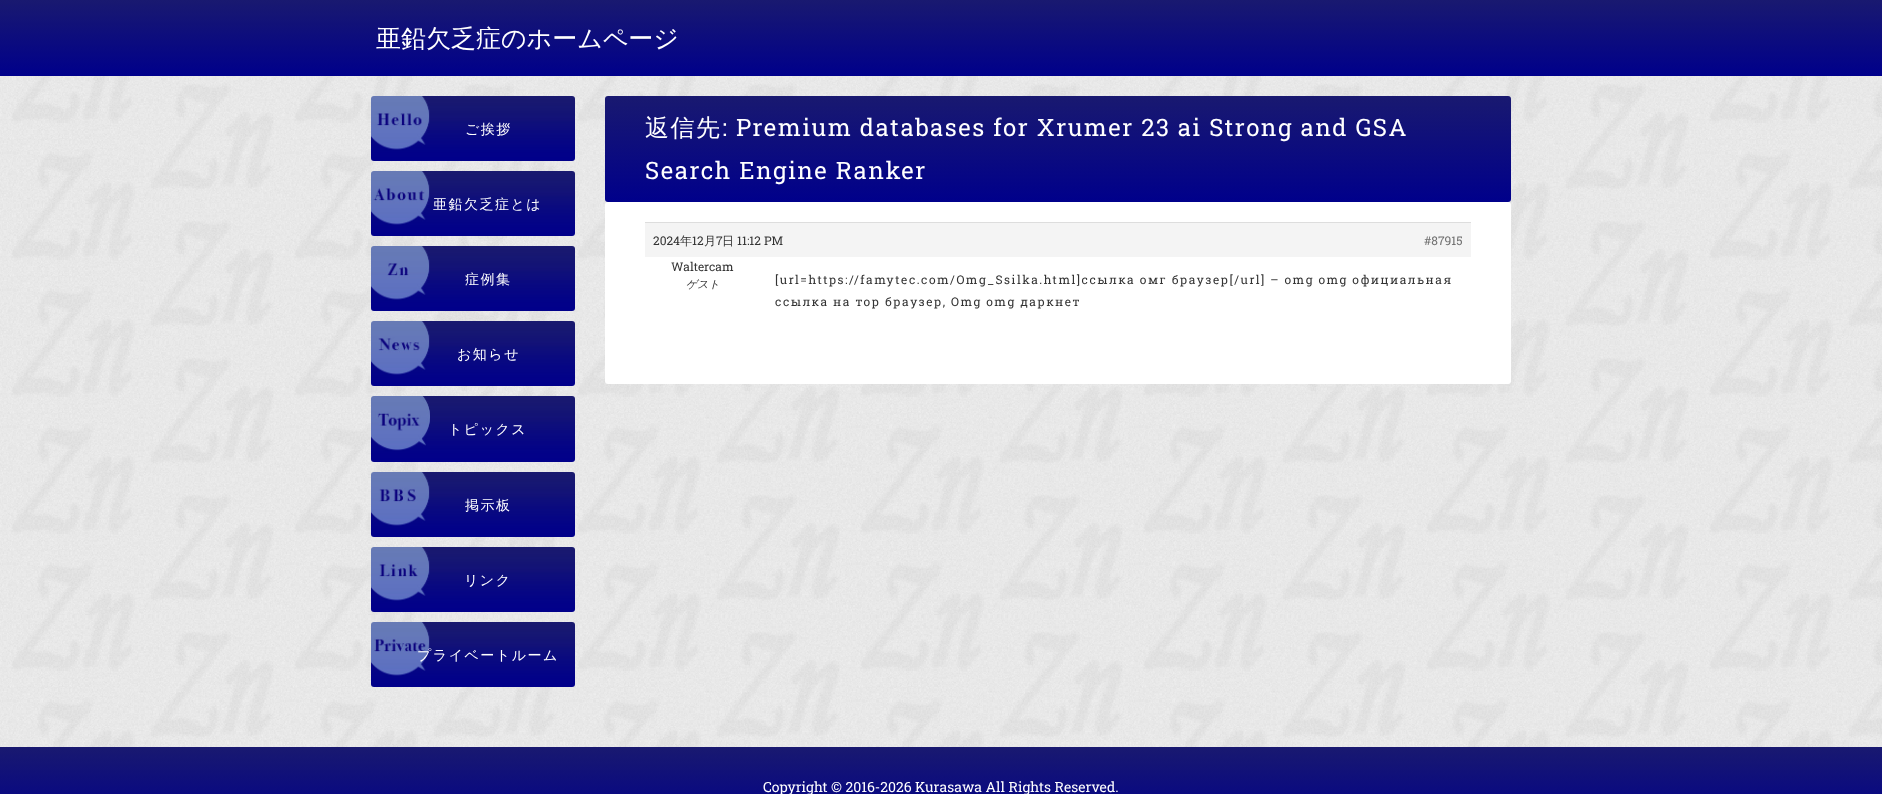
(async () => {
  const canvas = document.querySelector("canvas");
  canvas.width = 1882;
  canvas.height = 794;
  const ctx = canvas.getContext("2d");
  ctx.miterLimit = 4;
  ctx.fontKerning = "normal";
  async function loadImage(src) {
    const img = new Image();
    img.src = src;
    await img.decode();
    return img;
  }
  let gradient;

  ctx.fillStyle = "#ffffff";
  ctx.fillRect(0, 0, 1882, 794);
  ctx.drawImage(await loadImage("img/1.png"), 0, 76, 1882, 671);
  gradient = ctx.createLinearGradient(941, 0, 941, 76);
  gradient.addColorStop(0, "#191970");
  gradient.addColorStop(1, "#00008b");
  ctx.fillStyle = gradient;
  ctx.fillRect(0, 0, 1882, 76);
  ctx.drawImage(await loadImage("img/2.png"), 371, 96, 204, 65);
  ctx.drawImage(await loadImage("img/3.png"), 371, 171, 204, 65);
  ctx.drawImage(await loadImage("img/4.png"), 371, 246, 204, 65);
  ctx.drawImage(await loadImage("img/5.png"), 371, 321, 204, 65);
  ctx.drawImage(await loadImage("img/6.png"), 371, 396, 204, 66);
  ctx.drawImage(await loadImage("img/7.png"), 371, 472, 204, 65);
  ctx.drawImage(await loadImage("img/8.png"), 371, 547, 204, 65);
  ctx.drawImage(await loadImage("img/9.png"), 371, 622, 204, 65);
  gradient = ctx.createLinearGradient(1058, 96, 1058, 202);
  gradient.addColorStop(0, "#191970");
  gradient.addColorStop(1, "#00008b");
  ctx.fillStyle = gradient;
  ctx.beginPath();
  ctx.roundRect(605, 96, 906, 106, 3);
  ctx.fill();
  ctx.fillStyle = "#ffffff";
  ctx.beginPath();
  ctx.roundRect(605, 202, 906, 182, 3);
  ctx.fill();
  ctx.fillStyle = "#f4f4f4";
  ctx.fillRect(645, 223, 826, 34);
  ctx.fillStyle = "#dddddd";
  ctx.fillRect(645, 222, 826, 1);
  gradient = ctx.createLinearGradient(941, 747, 941, 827);
  gradient.addColorStop(0, "#191970");
  gradient.addColorStop(1, "#00008b");
  ctx.fillStyle = gradient;
  ctx.fillRect(0, 747, 1882, 47);
  ctx.font = "500 25px WenQuanYi Zen Hei";
  ctx.fillStyle = "#ffffff";
  ctx.fillText("亜鉛欠乏症のホームページ", 376, 47);
  ctx.letterSpacing = "1.5px";
  ctx.font = "500 14px WenQuanYi Zen Hei";
  for (const [text, x, y] of [
    ["ご挨拶", 465, 134],
    ["亜鉛欠乏症とは", 433, 209],
    ["症例集", 465, 284],
    ["お知らせ", 457, 359],
    ["トピックス", 448, 434],
    ["掲示板", 465, 510],
    ["リンク", 464, 585],
    ["プライベートルーム", 417, 660],
  ]) {
    ctx.fillText(text, x, y);
  }
  ctx.font = "500 24px WenQuanYi Zen Hei";
  ctx.fillText("返信先", 645, 136);
  ctx.font = "24px Roboto Slab";
  ctx.fillText(": Premium databases for Xrumer 23 ai Strong and GSA", 722, 136);
  ctx.fillText("Search Engine Ranker", 645, 179);
  ctx.letterSpacing = "0px";
  ctx.font = "12px Roboto Slab";
  ctx.fillStyle = "#333333";
  ctx.fillText("2024", 653, 245);
  ctx.font = "500 12px WenQuanYi Zen Hei";
  ctx.fillText("年", 680, 245);
  ctx.font = "12px Roboto Slab";
  ctx.fillText("12", 692, 245);
  ctx.font = "500 12px WenQuanYi Zen Hei";
  ctx.fillText("月", 704, 245);
  ctx.font = "12px Roboto Slab";
  ctx.fillText("7", 716, 245);
  ctx.font = "500 12px WenQuanYi Zen Hei";
  ctx.fillText("日", 722, 245);
  ctx.font = "12px Roboto Slab";
  ctx.fillText("11:12 PM", 737, 245);
  ctx.fillStyle = "#707070";
  ctx.fillText("#87915", 1424, 245);
  ctx.fillStyle = "#333333";
  ctx.fillText("Waltercam", 671, 271);
  ctx.font = "italic 500 11px WenQuanYi Zen Hei";
  ctx.fillText("ゲスト", 686, 288);
  ctx.letterSpacing = "1.5px";
  ctx.font = "12px Roboto Slab";
  ctx.fillText("[url=https://famytec.com/Omg_Ssilka.html]ссылка омг браузер[/url] – omg omg официальная", 775, 284);
  ctx.fillText("ссылка на тор браузер, Omg omg даркнет", 775, 306);
  ctx.letterSpacing = "0px";
  ctx.font = "14px Roboto Slab";
  ctx.fillStyle = "#ffffff";
  ctx.fillText("Copyright © 2016-2026 Kurasawa All Rights Reserved.", 763, 792);
})();
